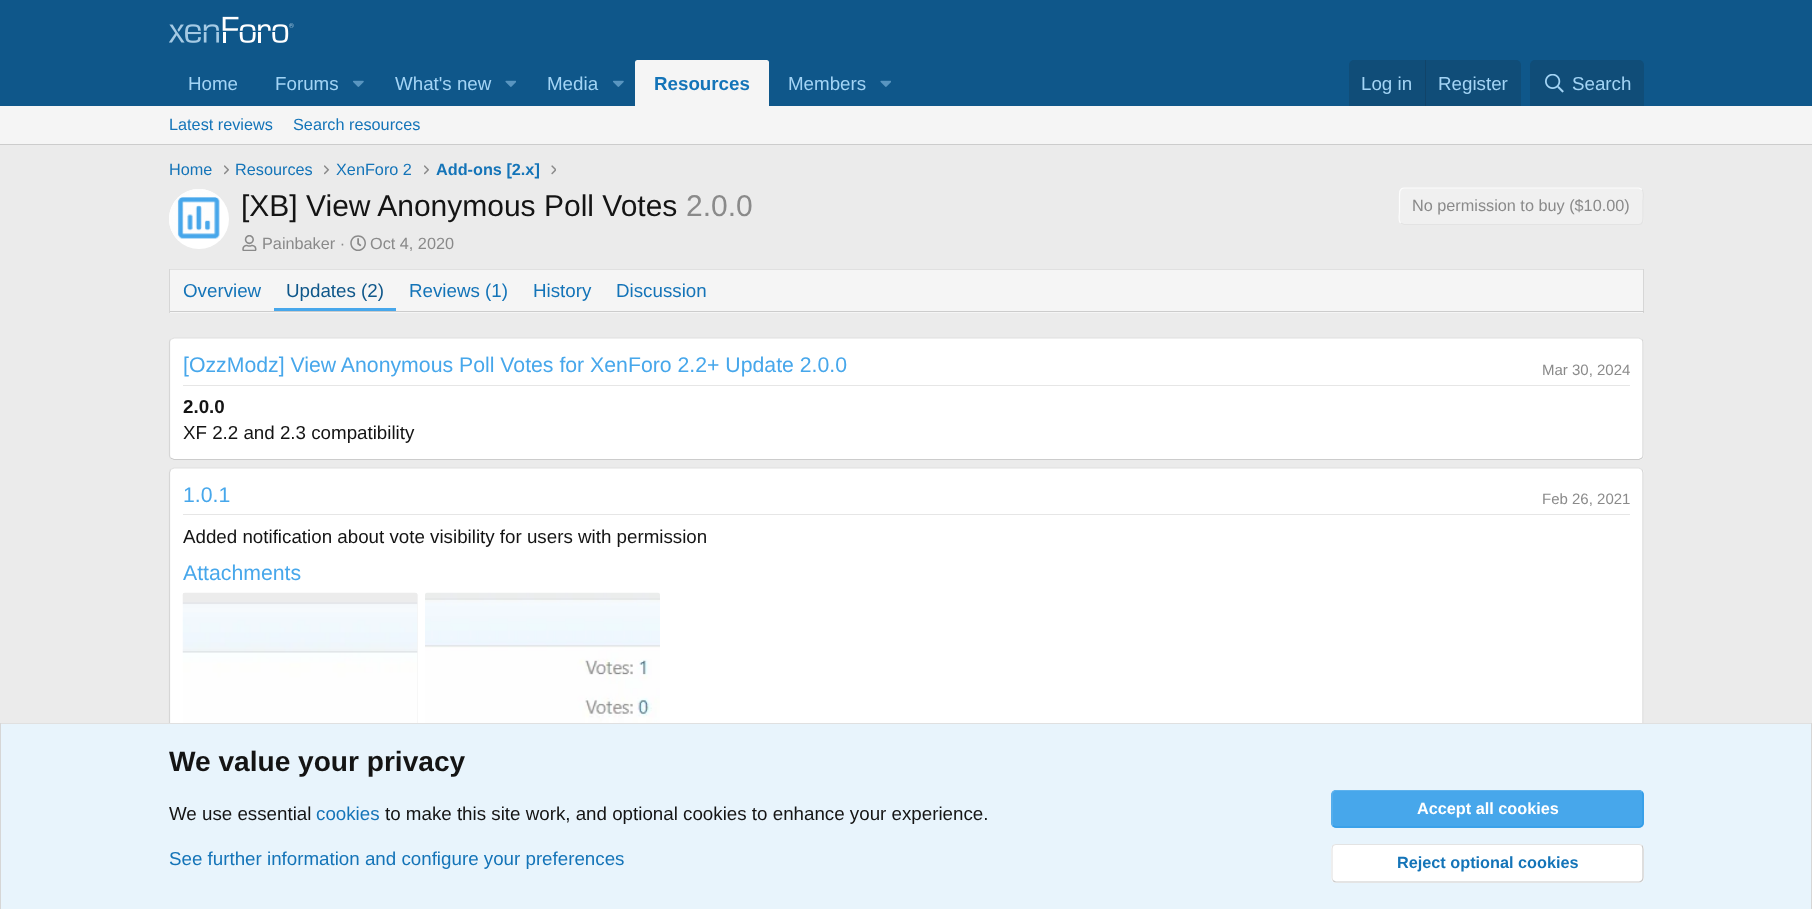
(async () => {
  const canvas = document.querySelector("canvas");
  canvas.width = 1812;
  canvas.height = 909;
  const ctx = canvas.getContext("2d");
  ctx.miterLimit = 4;
  ctx.fontKerning = "normal";
  async function loadImage(src) {
    const img = new Image();
    img.src = src;
    await img.decode();
    return img;
  }
  let path;

  ctx.fillStyle = "#ebebeb";
  ctx.fillRect(0, 0, 1812, 909);
  ctx.fillStyle = "#0f578a";
  ctx.fillRect(0, 0, 1812, 106);
  ctx.drawImage(await loadImage("img/1.png"), 169, 16, 125, 27);
  ctx.drawImage(await loadImage("img/2.png"), 353, 80, 11, 7);
  ctx.drawImage(await loadImage("img/3.png"), 505, 80, 11, 7);
  ctx.drawImage(await loadImage("img/2.png"), 613, 80, 11, 7);
  ctx.fillStyle = "#f5f5f5";
  ctx.beginPath();
  ctx.roundRect(635, 60, 134, 46, [2.5, 2.5, 0, 0]);
  ctx.fill();
  ctx.drawImage(await loadImage("img/3.png"), 880, 80, 11, 7);
  ctx.fillStyle = "#104d78";
  ctx.beginPath();
  ctx.roundRect(1349, 60, 172, 46, [5, 5, 0, 0]);
  ctx.fill();
  ctx.fillStyle = "#114469";
  ctx.fillRect(1425, 60, 1, 46);
  ctx.fillStyle = "#104d78";
  ctx.beginPath();
  ctx.roundRect(1530, 60, 114, 46, [5, 5, 0, 0]);
  ctx.fill();
  ctx.drawImage(await loadImage("img/4.png"), 1545, 74, 19, 19);
  ctx.fillStyle = "#f5f5f5";
  ctx.fillRect(0, 106, 1812, 38);
  ctx.fillStyle = "#cccccc";
  ctx.fillRect(0, 144, 1812, 1);
  ctx.drawImage(await loadImage("img/5.png"), 224, 165, 5, 10);
  ctx.drawImage(await loadImage("img/6.png"), 324, 165, 6, 10);
  ctx.drawImage(await loadImage("img/5.png"), 424, 165, 5, 10);
  ctx.drawImage(await loadImage("img/7.png"), 551, 165, 5, 10);
  ctx.fillStyle = "#ffffff";
  ctx.beginPath();
  ctx.arc(199, 219, 30, 0, Math.PI * 2);
  ctx.fill();
  ctx.drawImage(await loadImage("img/8.png"), 169, 189, 51, 50);
  ctx.fillStyle = "#f0f0f0";
  ctx.beginPath();
  ctx.roundRect(1399, 188, 245, 37, 5);
  ctx.fill();
  path = new Path2D("M1642 189.5C1644.5 192 1643 198.5 1643 201.5V215.5C1643 218.5 1643.5 224.5 1639 224.5H1404L1400.5 223");
  ctx.strokeStyle = "#e3e3e3";
  ctx.lineWidth = 1.2;
  ctx.stroke(path);
  path = new Path2D("M1400.5 223C1398 220.5 1399.5 214 1399.5 211V197C1399.5 194 1399 188 1404 188H1639L1642 189.5");
  ctx.strokeStyle = "#fcfcfc";
  ctx.stroke(path);
  ctx.drawImage(await loadImage("img/9.png"), 242, 235, 15, 16);
  ctx.drawImage(await loadImage("img/10.png"), 350, 235, 16, 16);
  for (const [x, y, w, h, color] of [
    [170, 270, 1473, 43, "#f5f5f5"],
    [169, 269, 1475, 1, "#e0e0e0"],
    [1643, 269, 1, 44, "#d6d6d6"],
    [169, 311, 1475, 1, "#cccccc"],
    [169, 269, 1, 44, "#d6d6d6"],
    [274, 308, 122, 3, "#47a7eb"],
  ]) {
    ctx.fillStyle = color;
    ctx.fillRect(x, y, w, h);
  }
  ctx.fillStyle = "#ffffff";
  ctx.beginPath();
  ctx.roundRect(169, 338, 1475, 122, 5);
  ctx.fill();
  path = new Path2D("M170.5 339.5L174 338H1639L1642 339.5");
  ctx.strokeStyle = "#e0e0e0";
  ctx.stroke(path);
  path = new Path2D("M1642 339.5C1642.5 340 1643 341.5 1643 342.5V455C1643 456 1642.5 457.5 1642 458");
  ctx.strokeStyle = "#d6d6d6";
  ctx.stroke(path);
  path = new Path2D("M1642 458L1639 459.5H174L170.5 458");
  ctx.strokeStyle = "#cccccc";
  ctx.stroke(path);
  path = new Path2D("M170.5 458C170 457.5 169.5 456 169.5 455V342.5C169.5 341.5 170 340 170.5 339.5");
  ctx.strokeStyle = "#d6d6d6";
  ctx.stroke(path);
  ctx.fillStyle = "#e6e6e6";
  ctx.fillRect(183, 385, 1447, 1);
  ctx.fillStyle = "#ffffff";
  ctx.beginPath();
  ctx.roundRect(169, 468, 1475, 382, 5);
  ctx.fill();
  path = new Path2D("M170.5 469.5L174 468H1639L1642 469.5");
  ctx.strokeStyle = "#e0e0e0";
  ctx.stroke(path);
  path = new Path2D("M1642 469.5L1643 472.5V845L1642 848");
  ctx.strokeStyle = "#d6d6d6";
  ctx.stroke(path);
  path = new Path2D("M170.5 848L169.5 845V472.5L170.5 469.5");
  ctx.stroke(path);
  ctx.fillStyle = "#e6e6e6";
  ctx.fillRect(183, 514, 1447, 1);
  ctx.fillStyle = "#f5f5f5";
  ctx.beginPath();
  ctx.roundRect(183, 593, 235, 235, 2.5);
  ctx.fill();
  ctx.drawImage(await loadImage("img/11.png"), 182, 592, 236, 131);
  ctx.drawImage(await loadImage("img/12.png"), 425, 592, 235, 131);
  for (const [x, y, w, h, color] of [
    [1, 724, 1810, 185, "#e8f4fc"],
    [0, 723, 1812, 1, "#e0e0e0"],
    [1811, 723, 1, 186, "#d6d6d6"],
    [0, 723, 1, 186, "#d6d6d6"],
  ]) {
    ctx.fillStyle = color;
    ctx.fillRect(x, y, w, h);
  }
  ctx.fillStyle = "#47a7eb";
  ctx.beginPath();
  ctx.roundRect(1331, 790, 313, 38, 5);
  ctx.fill();
  path = new Path2D("M1642 792C1642.5 792.5 1643 794 1643 795V822.5C1643 823.5 1642.5 825 1642 825.5C1641 826.5 1640 827 1639 827H1336C1335 827 1334 826.5 1333 825.5");
  ctx.strokeStyle = "#309ce8";
  ctx.stroke(path);
  path = new Path2D("M1333 825.5C1332.5 825 1332 823.5 1332 822.5V795C1332 794 1332.5 792.5 1333 792C1334 791 1335 790.5 1336 790.5H1639C1640 790.5 1641 791 1642 792");
  ctx.strokeStyle = "#5eb2ed";
  ctx.stroke(path);
  ctx.fillStyle = "#ffffff";
  ctx.beginPath();
  ctx.roundRect(1331, 844, 313, 39, 5);
  ctx.fill();
  path = new Path2D("M1642 845.5C1642.5 846.5 1643 847.5 1643 849V877.5C1643 878.5 1642.5 880 1642 880.5C1641 881.5 1640 882 1639 882H1336C1335 882 1334 881.5 1333 880.5");
  ctx.strokeStyle = "#c9c9c9";
  ctx.stroke(path);
  path = new Path2D("M1333 880.5C1332.5 880 1332 878.5 1332 877.5V849C1332 847.5 1332.5 846.5 1333 845.5C1334 845 1335 844.5 1336 844.5H1639C1640 844.5 1641 845 1642 845.5");
  ctx.strokeStyle = "#e3e3e3";
  ctx.stroke(path);
  ctx.font = "18.75px Liberation Sans";
  ctx.fillStyle = "#a3d4f5";
  for (const [text, x, y] of [
    ["Home", 188, 90],
    ["Forums", 275, 90],
    ["What's new", 395, 90],
    ["Media", 547, 90],
  ]) {
    ctx.fillText(text, x, y);
  }
  ctx.font = "bold 18.75px Liberation Sans";
  ctx.fillStyle = "#1474b8";
  ctx.fillText("Resources", 654, 90);
  ctx.font = "18.75px Liberation Sans";
  ctx.fillStyle = "#a3d4f5";
  for (const [text, x, y] of [
    ["Members", 788, 90],
    ["Log in", 1361, 90],
    ["Register", 1438, 90],
    ["Search", 1572, 90],
  ]) {
    ctx.fillText(text, x, y);
  }
  ctx.font = "16.25px Liberation Sans";
  ctx.fillStyle = "#1474b8";
  for (const [text, x, y] of [
    ["Latest reviews", 169, 130],
    ["Search resources", 293, 130],
    ["Home", 169, 175],
    ["Resources", 235, 175],
    ["XenForo 2", 336, 175],
  ]) {
    ctx.fillText(text, x, y);
  }
  ctx.font = "bold 16.25px Liberation Sans";
  ctx.fillText("Add-ons [2.x]", 436, 175);
  ctx.font = "30px Liberation Sans";
  ctx.fillStyle = "#141414";
  ctx.fillText("[XB] View Anonymous Poll Votes", 241, 216);
  ctx.fillStyle = "#8a8a8a";
  ctx.fillText("2.0.0", 686, 216);
  ctx.font = "16.25px Liberation Sans";
  for (const [text, x, y] of [
    ["No permission to buy ($10.00)", 1412, 211],
    ["Painbaker ·", 262, 249],
    ["Oct 4, 2020", 370, 249],
  ]) {
    ctx.fillText(text, x, y);
  }
  ctx.font = "18.75px Liberation Sans";
  ctx.fillStyle = "#1474b8";
  ctx.fillText("Overview", 183, 297);
  ctx.fillStyle = "#0f578a";
  ctx.fillText("Updates (2)", 286, 297);
  ctx.fillStyle = "#1474b8";
  for (const [text, x, y] of [
    ["Reviews (1)", 409, 297],
    ["History", 533, 297],
    ["Discussion", 616, 297],
  ]) {
    ctx.fillText(text, x, y);
  }
  ctx.font = "21.25px Liberation Sans";
  ctx.fillStyle = "#47a7eb";
  ctx.fillText("[OzzModz] View Anonymous Poll Votes for XenForo 2.2+ Update 2.0.0", 183, 372);
  ctx.font = "15px Liberation Sans";
  ctx.fillStyle = "#8a8a8a";
  ctx.fillText("Mar 30, 2024", 1542, 375);
  ctx.font = "bold 18.75px Liberation Sans";
  ctx.fillStyle = "#141414";
  ctx.fillText("2.0.0", 183, 413);
  ctx.font = "18.75px Liberation Sans";
  ctx.fillText("XF 2.2 and 2.3 compatibility", 183, 439);
  ctx.font = "21.25px Liberation Sans";
  ctx.fillStyle = "#47a7eb";
  ctx.fillText("1.0.1", 183, 502);
  ctx.font = "15px Liberation Sans";
  ctx.fillStyle = "#8a8a8a";
  ctx.fillText("Feb 26, 2021", 1542, 504);
  ctx.font = "18.75px Liberation Sans";
  ctx.fillStyle = "#141414";
  ctx.fillText("Added notification about vote visibility for users with permission", 183, 543);
  ctx.font = "21.25px Liberation Sans";
  ctx.fillStyle = "#47a7eb";
  ctx.fillText("Attachments", 183, 580);
  ctx.font = "bold 28.1px Liberation Sans";
  ctx.fillStyle = "#141414";
  ctx.fillText("We value your privacy", 169, 771);
  ctx.font = "18.75px Liberation Sans";
  ctx.fillText("We use essential", 169, 820);
  ctx.fillStyle = "#1474b8";
  ctx.fillText("cookies", 316, 820);
  ctx.fillStyle = "#141414";
  ctx.fillText("to make this site work, and optional cookies to enhance your experience.", 385, 820);
  ctx.fillStyle = "#1474b8";
  ctx.fillText("See further information and configure your preferences", 169, 865);
  ctx.font = "bold 16.25px Liberation Sans";
  ctx.fillStyle = "#ffffff";
  ctx.fillText("Accept all cookies", 1417, 814);
  ctx.fillStyle = "#1474b8";
  ctx.fillText("Reject optional cookies", 1397, 868);
})();
